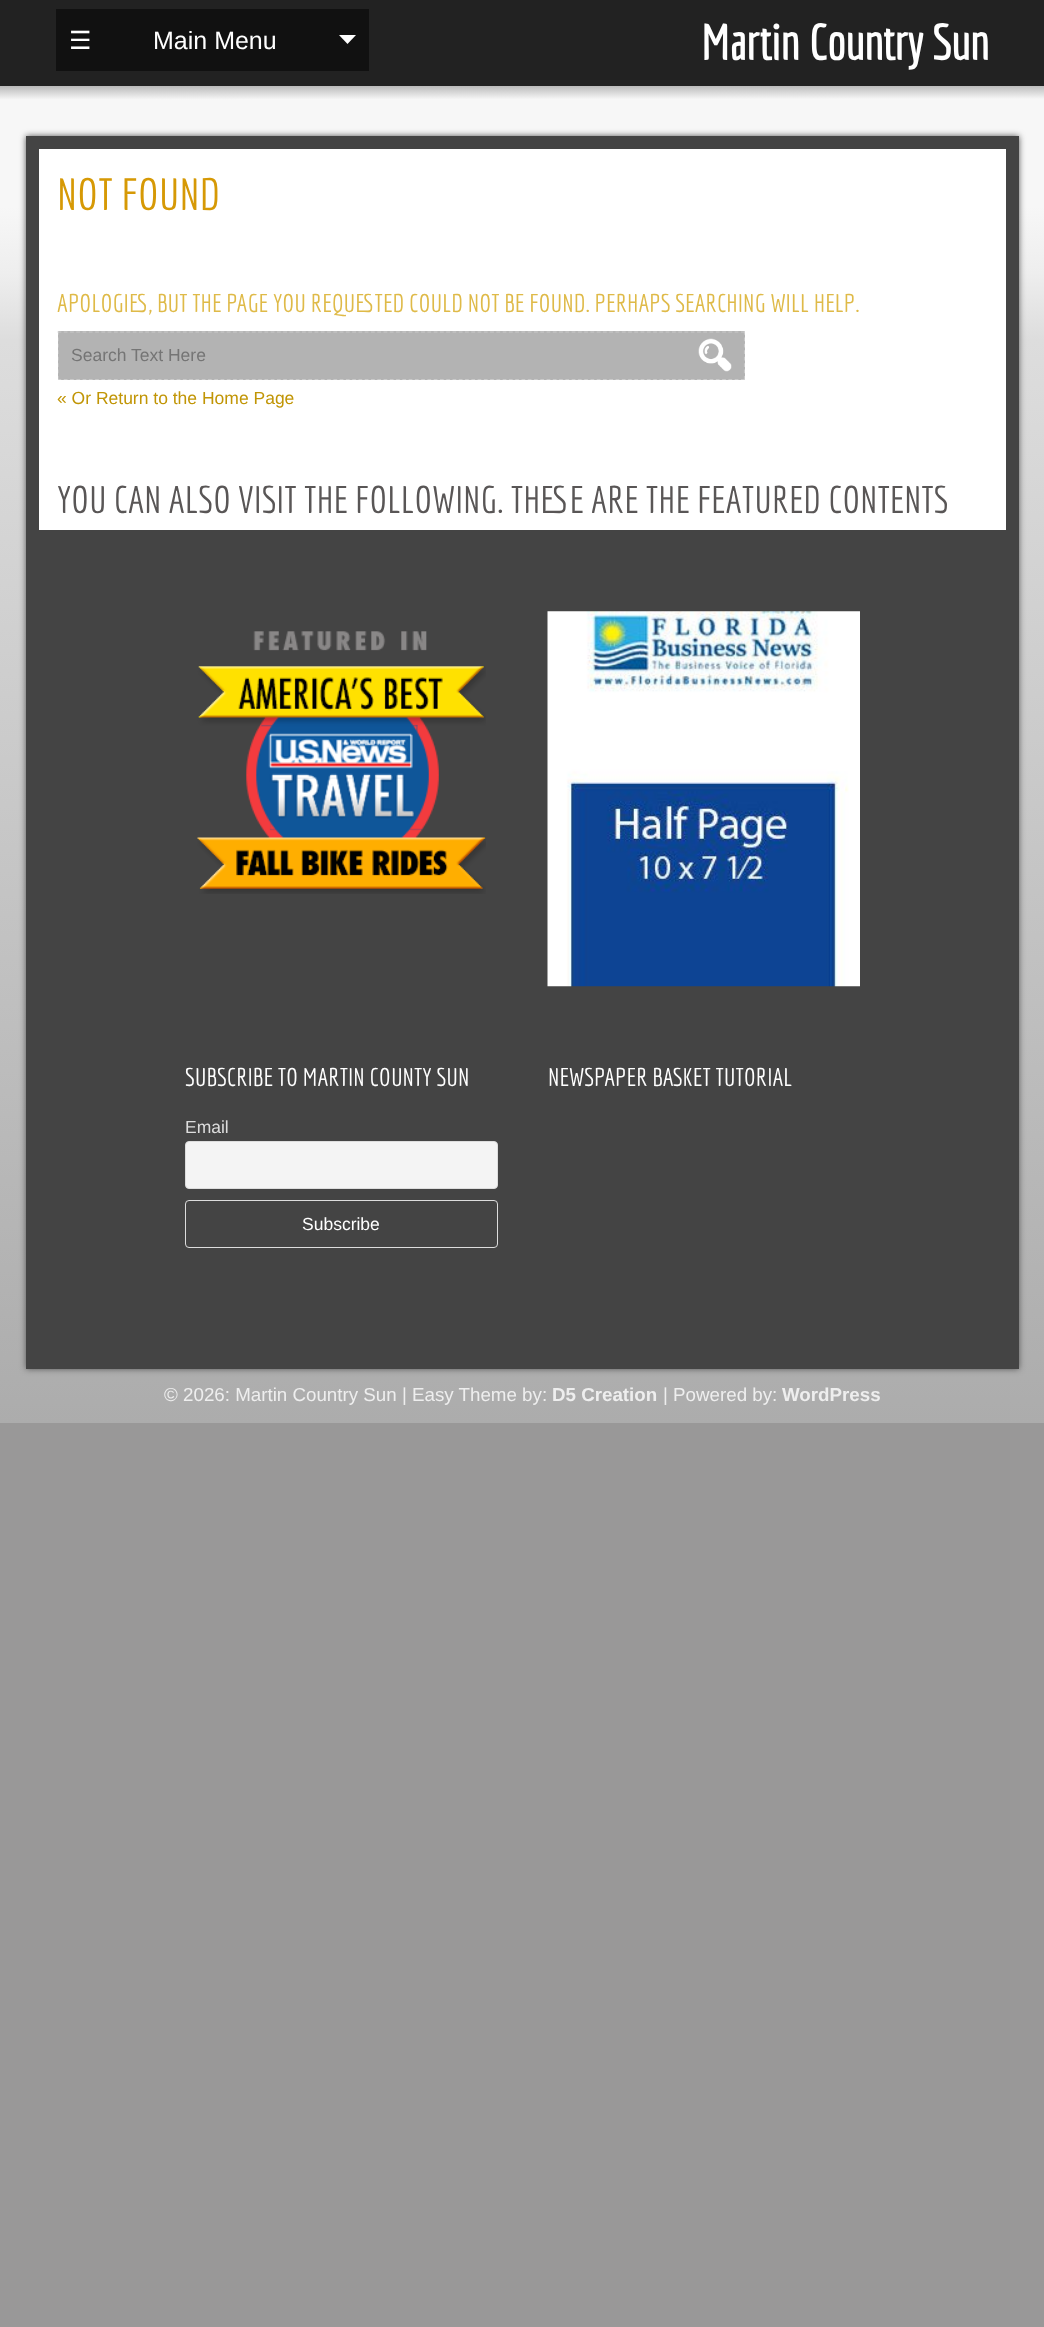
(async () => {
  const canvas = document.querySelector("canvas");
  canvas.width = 1044;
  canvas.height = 2327;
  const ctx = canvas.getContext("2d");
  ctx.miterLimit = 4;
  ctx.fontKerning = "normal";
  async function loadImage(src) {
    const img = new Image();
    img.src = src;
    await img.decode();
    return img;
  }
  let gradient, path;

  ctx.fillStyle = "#999898";
  ctx.fillRect(0, 0, 1044, 2327);
  ctx.fillStyle = "#222222";
  ctx.fillRect(0, 0, 1044, 86);
  ctx.fillStyle = "#111111";
  ctx.fillRect(56, 9, 313, 62);
  ctx.fillStyle = "#ffffff";
  path = new Path2D("M339 35H356L347.5 44Z");
  ctx.fill(path);
  gradient = ctx.createLinearGradient(522, 86, 523, 1423);
  gradient.addColorStop(0, "#ffffff");
  gradient.addColorStop(0, "#bbbbbb");
  gradient.addColorStop(0, "#aaaaaa");
  gradient.addColorStop(0, "#bbbbbb");
  gradient.addColorStop(0.01, "#f7f7f7");
  gradient.addColorStop(0.09, "#f7f7f7");
  gradient.addColorStop(0.14, "#eeeeee");
  gradient.addColorStop(0.19, "#dddddd");
  gradient.addColorStop(1, "#acacac");
  ctx.fillStyle = gradient;
  ctx.fillRect(0, 86, 1044, 1337);
  ctx.fillStyle = "#555555";
  ctx.filter = "blur(3px)";
  ctx.beginPath();
  ctx.rect(26, 136, 993, 1233);
  ctx.fill();
  ctx.filter = "none";
  ctx.fillStyle = "#ffffff";
  ctx.fillRect(39, 149, 967, 381);
  ctx.strokeStyle = "#444444";
  ctx.lineWidth = 13;
  ctx.strokeRect(32.5, 142.5, 980, 1220);
  ctx.fillStyle = "#b3b3b3";
  ctx.fillRect(58, 331, 687, 49);
  path = new Path2D("M57.5 332H745");
  ctx.strokeStyle = "#cacaca";
  ctx.lineWidth = 1.2;
  ctx.setLineDash([3.75, 2.52]);
  ctx.stroke(path);
  path = new Path2D("M744.5 331V380");
  ctx.strokeStyle = "rgba(255, 255, 255, 0.3)";
  ctx.setLineDash([3.75, 2.68]);
  ctx.stroke(path);
  path = new Path2D("M57.5 379.5H745");
  ctx.setLineDash([3.75, 2.52]);
  ctx.stroke(path);
  path = new Path2D("M58 331V380");
  ctx.setLineDash([3.75, 2.68]);
  ctx.stroke(path);
  ctx.drawImage(await loadImage("img/1.png"), 698, 338, 34, 34);
  ctx.fillStyle = "#444444";
  ctx.fillRect(39, 530, 967, 826);
  ctx.drawImage(await loadImage("img/2.png"), 197, 631, 289, 263);
  ctx.drawImage(await loadImage("img/3.png"), 547, 611, 313, 376);
  ctx.fillStyle = "#f4f4f4";
  ctx.beginPath();
  ctx.roundRect(185.5, 1141.5, 312, 47, 3.5);
  ctx.fill();
  ctx.strokeStyle = "#dddddd";
  ctx.lineWidth = 1;
  ctx.setLineDash([]);
  ctx.stroke();
  ctx.beginPath();
  ctx.roundRect(185.5, 1200.5, 312, 47, 3.5);
  ctx.stroke();
  ctx.font = "25px DejaVu Sans";
  ctx.fillStyle = "#ffffff";
  ctx.fillText("☰", 69, 49);
  ctx.font = "25px Liberation Sans";
  ctx.fillText("Main Menu", 153, 49);
  ctx.font = "bold 48.75px Economica";
  ctx.fillText("Martin Country Sun", 701, 60);
  ctx.font = "44px Economica";
  ctx.fillStyle = "#d69905";
  ctx.fillText("NOT FOUND", 57, 210);
  ctx.font = "25px Economica";
  ctx.fillStyle = "#dfba48";
  ctx.fillText("APOLOGIES, BUT THE PAGE YOU REQUESTED COULD NOT BE FOUND. PERHAPS SEARCHING WILL HELP.", 57, 312);
  ctx.font = "17.5px Liberation Sans";
  ctx.fillStyle = "#757575";
  ctx.fillText("Search Text Here", 71, 361);
  ctx.fillStyle = "#c19505";
  ctx.fillText("« Or Return to the Home Page", 57, 404);
  ctx.font = "37.5px Economica";
  ctx.fillStyle = "#595656";
  ctx.fillText("YOU CAN ALSO VISIT THE FOLLOWING. THESE ARE THE FEATURED CONTENTS", 57, 513);
  ctx.font = "25px Economica";
  ctx.fillStyle = "#ffffff";
  ctx.fillText("SUBSCRIBE TO MARTIN COUNTY SUN", 185, 1086);
  ctx.font = "17.5px Liberation Sans";
  ctx.fillStyle = "#dddddd";
  ctx.fillText("Email", 185, 1133);
  ctx.fillStyle = "#ffffff";
  ctx.fillText("Subscribe", 302, 1230);
  ctx.font = "25px Economica";
  ctx.fillText("NEWSPAPER BASKET TUTORIAL", 548, 1086);
  ctx.font = "18.75px Liberation Sans";
  ctx.fillStyle = "#eeeeee";
  ctx.fillText("© 2026: Martin Country Sun | Easy Theme by:", 164, 1401);
  ctx.font = "bold 18.75px Liberation Sans";
  ctx.fillText("D5 Creation", 552, 1401);
  ctx.font = "18.75px Liberation Sans";
  ctx.fillText("| Powered by:", 663, 1401);
  ctx.font = "bold 18.75px Liberation Sans";
  ctx.fillText("WordPress", 782, 1401);
})();
